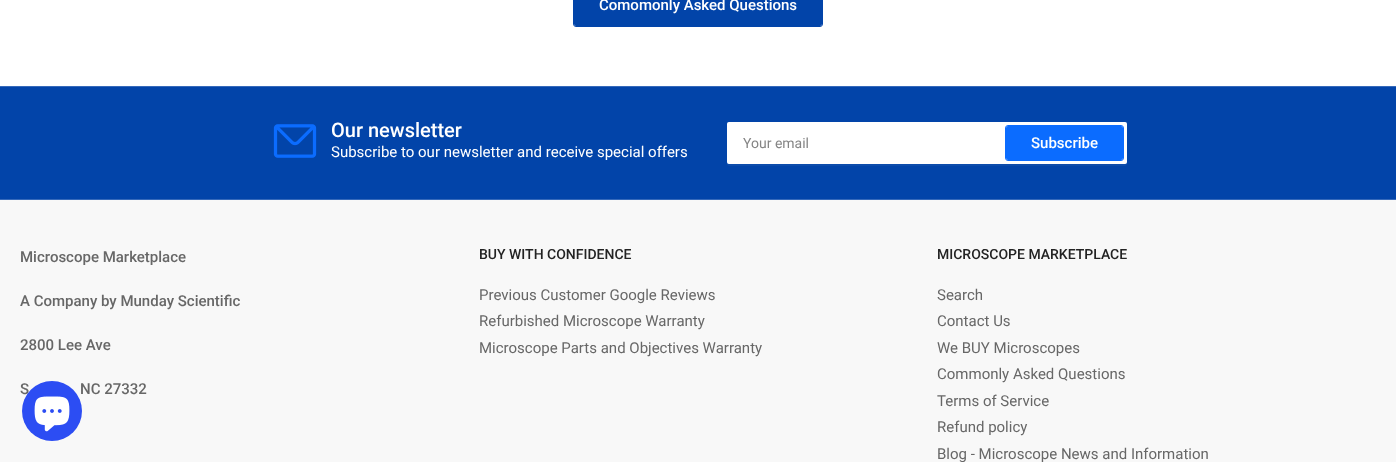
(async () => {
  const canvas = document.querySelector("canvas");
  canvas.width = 1396;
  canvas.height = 462;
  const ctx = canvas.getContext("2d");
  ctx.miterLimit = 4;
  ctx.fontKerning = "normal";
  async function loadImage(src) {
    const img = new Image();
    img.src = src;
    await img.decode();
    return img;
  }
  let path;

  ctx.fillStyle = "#ffffff";
  ctx.fillRect(0, 0, 1396, 462);
  ctx.beginPath();
  ctx.roundRect(573.5, -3.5, 249, 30, 2.5);
  ctx.strokeStyle = "#0244a9";
  ctx.stroke();
  ctx.fillStyle = "#0244a9";
  ctx.beginPath();
  ctx.roundRect(574, -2, 248, 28, 2);
  ctx.fill();
  for (const [x, y, w, h, color] of [
    [0, 87, 1396, 112, "#0244a9"],
    [0, 86, 1396, 1, "#3569ba"],
    [0, 199, 1396, 1, "#3569ba"],
  ]) {
    ctx.fillStyle = color;
    ctx.fillRect(x, y, w, h);
  }
  ctx.drawImage(await loadImage("img/1.png"), 273, 124, 44, 34);
  ctx.fillStyle = "#0d4cab";
  path = new Path2D("M727 162V164C727 165 728 166 729 166H1125C1126 166 1127 165 1127 164V162C1127 163 1126 164 1125 164H729C728 164 727 163 727 162Z");
  ctx.fill(path);
  ctx.fillStyle = "#ffffff";
  ctx.beginPath();
  ctx.roundRect(727, 122, 400, 42, 2);
  ctx.fill();
  ctx.beginPath();
  ctx.roundRect(727.5, 122.5, 399, 41, 1.5);
  ctx.strokeStyle = "rgba(255, 255, 255, 0.2)";
  ctx.stroke();
  ctx.beginPath();
  ctx.roundRect(1005.5, 125.5, 118, 35, 2.5);
  ctx.strokeStyle = "#0b6cff";
  ctx.stroke();
  ctx.fillStyle = "#0b6cff";
  ctx.beginPath();
  ctx.roundRect(1006, 126, 117, 34, 2);
  ctx.fill();
  ctx.fillStyle = "#f8f8f8";
  ctx.fillRect(0, 200, 1396, 262);
  ctx.font = "500 15px Roboto";
  ctx.fillStyle = "#ffffff";
  ctx.fillText("Comomonly Asked Questions", 599, 10);
  ctx.font = "500 20px Roboto";
  ctx.fillText("Our newsletter", 331, 137);
  ctx.font = "15px Roboto";
  ctx.fillText("Subscribe to our newsletter and receive special offers", 331, 157);
  ctx.font = "14px Roboto";
  ctx.fillStyle = "#858585";
  ctx.fillText("Your email", 743, 148);
  ctx.font = "500 15px Roboto";
  ctx.fillStyle = "#ffffff";
  ctx.fillText("Subscribe", 1031, 148);
  ctx.fillStyle = "#676767";
  for (const [text, x, y] of [
    ["Microscope Marketplace", 20, 262],
    ["A Company by Munday Scientific", 20, 306],
    ["2800 Lee Ave", 20, 350],
    ["S", 20, 394],
    ["NC 27332", 80, 394],
  ]) {
    ctx.fillText(text, x, y);
  }
  ctx.font = "500 14px Roboto";
  ctx.fillStyle = "#232323";
  ctx.fillText("BUY WITH CONFIDENCE", 479, 259);
  ctx.font = "15px Roboto";
  ctx.fillStyle = "#676767";
  for (const [text, x, y] of [
    ["Previous Customer Google Reviews", 479, 300],
    ["Refurbished Microscope Warranty", 479, 326],
    ["Microscope Parts and Objectives Warranty", 479, 353],
  ]) {
    ctx.fillText(text, x, y);
  }
  ctx.font = "500 14px Roboto";
  ctx.fillStyle = "#232323";
  ctx.fillText("MICROSCOPE MARKETPLACE", 937, 259);
  ctx.font = "15px Roboto";
  ctx.fillStyle = "#676767";
  for (const [text, x, y] of [
    ["Search", 937, 300],
    ["Contact Us", 937, 326],
    ["We BUY Microscopes", 937, 353],
    ["Commonly Asked Questions", 937, 379],
    ["Terms of Service", 937, 406],
    ["Refund policy", 937, 432],
    ["Blog - Microscope News and Information", 937, 459],
  ]) {
    ctx.fillText(text, x, y);
  }
  ctx.fillStyle = "#2c4df3";
  ctx.beginPath();
  ctx.arc(52, 411, 30, 0, Math.PI * 2);
  ctx.fill();
  ctx.drawImage(await loadImage("img/2.png"), 34, 396, 36, 36);
})();
